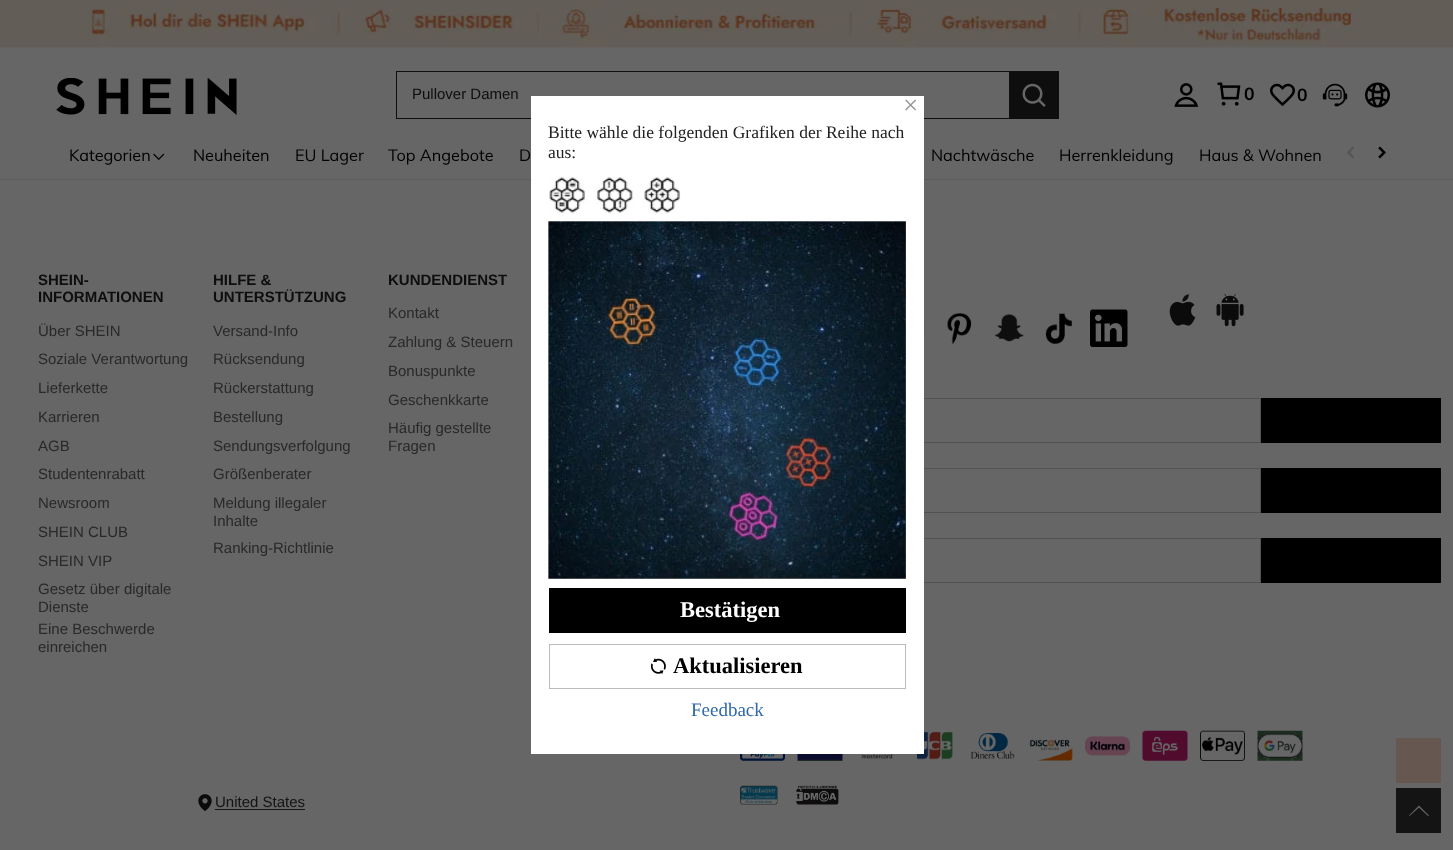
(async () => {
  const canvas = document.querySelector("canvas");
  canvas.width = 1453;
  canvas.height = 850;
  const ctx = canvas.getContext("2d");
  ctx.miterLimit = 4;
  ctx.fontKerning = "normal";
  async function loadImage(src) {
    const img = new Image();
    img.src = src;
    await img.decode();
    return img;
  }
  let path;

  ctx.fillStyle = "#666666";
  ctx.fillRect(0, 0, 1453, 850);
  ctx.drawImage(await loadImage("img/1.png"), 0, 0, 1453, 48);
  ctx.drawImage(await loadImage("img/2.png"), 56, 78, 181, 37);
  for (const [x, y, w, h, color] of [
    [396, 71, 613, 1, "#0e0e0e"],
    [396, 118, 613, 1, "#0e0e0e"],
    [396, 71, 1, 48, "#0e0e0e"],
    [1009, 71, 50, 48, "#0e0e0e"],
  ]) {
    ctx.fillStyle = color;
    ctx.fillRect(x, y, w, h);
  }
  ctx.drawImage(await loadImage("img/3.png"), 1022, 83, 24, 24);
  ctx.drawImage(await loadImage("img/4.png"), 1174, 83, 25, 24);
  ctx.drawImage(await loadImage("img/5.png"), 1217, 82, 24, 24);
  ctx.drawImage(await loadImage("img/6.png"), 1270, 83, 25, 24);
  ctx.drawImage(await loadImage("img/7.png"), 1322, 83, 26, 24);
  ctx.drawImage(await loadImage("img/8.png"), 1365, 82, 25, 26);
  ctx.fillStyle = "#5c5c5c";
  ctx.fillRect(0, 179, 1453, 1);
  ctx.drawImage(await loadImage("img/9.png"), 153, 153, 12, 7);
  ctx.drawImage(await loadImage("img/10.png"), 1346, 146, 8, 13);
  ctx.drawImage(await loadImage("img/11.png"), 1378, 146, 8, 13);
  ctx.drawImage(await loadImage("img/12.png"), 924, 323, 1, 10);
  ctx.drawImage(await loadImage("img/13.png"), 947, 312, 25, 32);
  ctx.drawImage(await loadImage("img/14.png"), 995, 314, 29, 28);
  ctx.drawImage(await loadImage("img/15.png"), 1045, 313, 27, 31);
  ctx.drawImage(await loadImage("img/16.png"), 1090, 309, 38, 38);
  ctx.drawImage(await loadImage("img/17.png"), 1169, 294, 27, 32);
  ctx.drawImage(await loadImage("img/18.png"), 1216, 293, 28, 34);
  ctx.strokeStyle = "#525252";
  ctx.strokeRect(740.5, 398.5, 520, 44);
  ctx.fillStyle = "#000000";
  ctx.fillRect(1261, 398, 180, 45);
  ctx.strokeRect(840.5, 468.5, 420, 44);
  ctx.fillRect(1261, 468, 180, 45);
  ctx.strokeRect(840.5, 538.5, 420, 44);
  ctx.fillRect(1261, 538, 180, 45);
  ctx.drawImage(await loadImage("img/19.png"), 913, 731, 44, 29);
  ctx.drawImage(await loadImage("img/20.png"), 970, 731, 45, 29);
  ctx.drawImage(await loadImage("img/21.png"), 1028, 731, 45, 30);
  ctx.drawImage(await loadImage("img/22.png"), 1085, 736, 45, 20);
  ctx.drawImage(await loadImage("img/23.png"), 1142, 730, 46, 31);
  ctx.drawImage(await loadImage("img/24.png"), 1200, 730, 45, 31);
  ctx.drawImage(await loadImage("img/25.png"), 1257, 730, 46, 31);
  ctx.drawImage(await loadImage("img/26.png"), 740, 754, 45, 7);
  ctx.drawImage(await loadImage("img/27.png"), 797, 754, 46, 7);
  ctx.drawImage(await loadImage("img/28.png"), 855, 754, 45, 6);
  ctx.drawImage(await loadImage("img/29.png"), 198, 794, 14, 17);
  ctx.fillStyle = "#141414";
  ctx.fillRect(215, 809, 90, 1);
  ctx.drawImage(await loadImage("img/30.png"), 740, 785, 38, 20);
  ctx.drawImage(await loadImage("img/31.png"), 796, 785, 43, 20);
  ctx.fillStyle = "#665851";
  ctx.fillRect(1396, 738, 45, 45);
  ctx.fillStyle = "#141414";
  ctx.fillRect(1396, 788, 45, 45);
  ctx.fillStyle = "#666666";
  path = new Path2D("M1429 815.5L1419 805.5L1409 815.5L1409.5 816L1419 807.5L1428 816Z");
  ctx.fill(path);
  ctx.fillStyle = "#ffffff";
  ctx.fillRect(531, 96, 393, 658);
  ctx.drawImage(await loadImage("img/32.png"), 549, 177, 132, 37);
  ctx.drawImage(await loadImage("img/33.png"), 548, 221, 358, 358);
  ctx.fillStyle = "#000000";
  ctx.fillRect(549, 588, 357, 45);
  ctx.strokeStyle = "#bbbbbb";
  ctx.strokeRect(549.5, 644.5, 356, 44);
  ctx.drawImage(await loadImage("img/34.png"), 651, 658, 15, 16);
  ctx.font = "15px Liberation Sans";
  ctx.fillStyle = "#0e0e0e";
  ctx.fillText("Pullover Damen", 412, 99);
  ctx.font = "bold 17.5px Muli";
  ctx.fillStyle = "#000000";
  ctx.fillText("0", 1244, 100);
  ctx.fillText("0", 1297, 101);
  ctx.font = "16.25px Muli";
  for (const [text, x, y] of [
    ["Kategorien", 69, 161],
    ["Neuheiten", 193, 161],
    ["EU Lager", 295, 161],
    ["Top Angebote", 388, 161],
    ["D", 519, 161],
    ["Nachtwäsche", 931, 161],
    ["Herrenkleidung", 1059, 161],
    ["Haus & Wohnen", 1199, 161],
  ]) {
    ctx.fillText(text, x, y);
  }
  ctx.font = "bold 15px Liberation Sans";
  ctx.fillStyle = "#0e0e0e";
  ctx.fillText("SHEIN-", 38, 285);
  ctx.fillText("INFORMATIONEN", 38, 302);
  ctx.font = "15px Liberation Sans";
  ctx.fillStyle = "#292929";
  for (const [text, x, y] of [
    ["Über SHEIN", 38, 336],
    ["Soziale Verantwortung", 38, 364],
    ["Lieferkette", 38, 393],
    ["Karrieren", 38, 422],
    ["AGB", 38, 451],
    ["Studentenrabatt", 38, 479],
    ["Newsroom", 38, 508],
    ["SHEIN CLUB", 38, 537],
    ["SHEIN VIP", 38, 566],
    ["Gesetz über digitale", 38, 594],
    ["Dienste", 38, 612],
    ["Eine Beschwerde", 38, 634],
    ["einreichen", 38, 652],
  ]) {
    ctx.fillText(text, x, y);
  }
  ctx.font = "bold 15px Liberation Sans";
  ctx.fillStyle = "#0e0e0e";
  ctx.fillText("HILFE &", 213, 285);
  ctx.fillText("UNTERSTÜTZUNG", 213, 302);
  ctx.font = "15px Liberation Sans";
  ctx.fillStyle = "#292929";
  for (const [text, x, y] of [
    ["Versand-Info", 213, 336],
    ["Rücksendung", 213, 364],
    ["Rückerstattung", 213, 393],
    ["Bestellung", 213, 422],
    ["Sendungsverfolgung", 213, 451],
    ["Größenberater", 213, 479],
    ["Meldung illegaler", 213, 508],
    ["Inhalte", 213, 526],
    ["Ranking-Richtlinie", 213, 553],
  ]) {
    ctx.fillText(text, x, y);
  }
  ctx.font = "bold 15px Liberation Sans";
  ctx.fillStyle = "#0e0e0e";
  ctx.fillText("KUNDENDIENST", 388, 285);
  ctx.font = "15px Liberation Sans";
  ctx.fillStyle = "#292929";
  for (const [text, x, y] of [
    ["Kontakt", 388, 318],
    ["Zahlung & Steuern", 388, 347],
    ["Bonuspunkte", 388, 376],
    ["Geschenkkarte", 388, 405],
    ["Häufig gestellte", 388, 433],
    ["Fragen", 388, 451],
  ]) {
    ctx.fillText(text, x, y);
  }
  ctx.fillStyle = "#141414";
  ctx.fillText("United States", 215, 807);
  ctx.font = "27px Liberation Serif";
  ctx.fillStyle = "#959595";
  ctx.fillText("×", 903, 114);
  ctx.font = "17.5px Liberation Serif";
  ctx.fillStyle = "#222222";
  ctx.fillText("Bitte wähle die folgenden Grafiken der Reihe nach", 548, 138);
  ctx.fillText("aus:", 548, 158);
  ctx.font = "bold 22.5px Liberation Serif";
  ctx.fillStyle = "#ffffff";
  ctx.fillText("Bestätigen", 680, 617);
  ctx.fillStyle = "#000000";
  ctx.fillText("Aktualisieren", 673, 673);
  ctx.font = "19px Liberation Serif";
  ctx.fillStyle = "#2d68a8";
  ctx.fillText("Feedback", 691, 716);
})();
